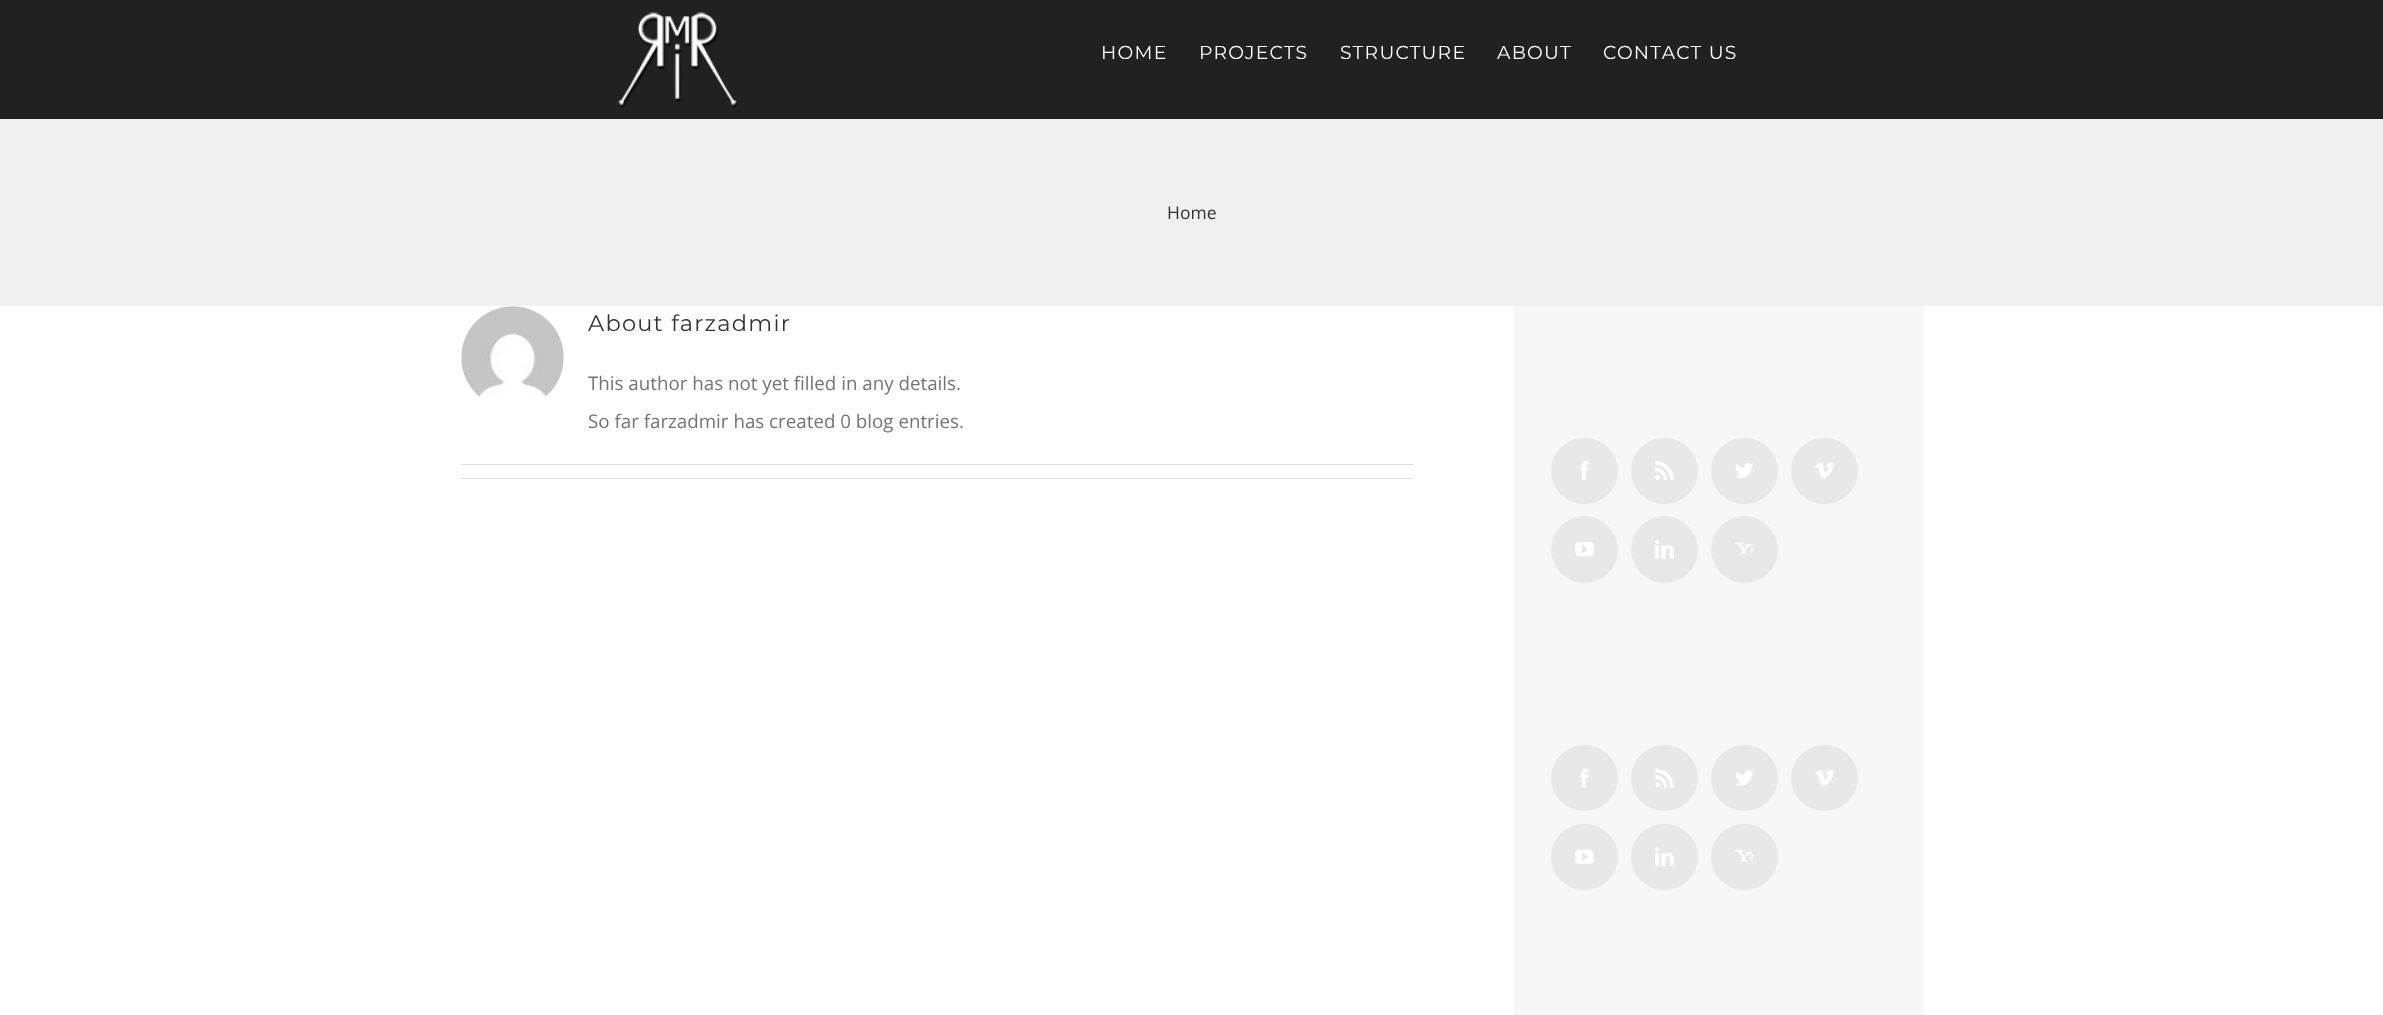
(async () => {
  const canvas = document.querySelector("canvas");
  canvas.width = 2383;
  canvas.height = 1015;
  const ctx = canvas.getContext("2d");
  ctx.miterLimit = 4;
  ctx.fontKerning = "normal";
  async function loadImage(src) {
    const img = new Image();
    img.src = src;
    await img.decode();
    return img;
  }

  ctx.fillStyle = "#ffffff";
  ctx.fillRect(0, 0, 2383, 1015);
  ctx.fillStyle = "#212121";
  ctx.fillRect(0, 0, 2383, 119);
  ctx.drawImage(await loadImage("img/1.png"), 618, 12, 120, 96);
  ctx.fillStyle = "#f0f0f0";
  ctx.fillRect(0, 119, 2383, 187);
  ctx.drawImage(await loadImage("img/2.png"), 461, 306, 103, 91);
  for (const [x, y, w, h, color] of [
    [461, 464, 953, 1, "#e0dede"],
    [461, 478, 953, 1, "#e0dede"],
    [1514, 306, 410, 709, "#f7f7f7"],
  ]) {
    ctx.fillStyle = color;
    ctx.fillRect(x, y, w, h);
  }
  ctx.fillStyle = "#e8e8e8";
  ctx.beginPath();
  ctx.roundRect(1551.5, 438.5, 66, 65, 32.5);
  ctx.fill();
  ctx.strokeStyle = "#e8e8e8";
  ctx.stroke();
  ctx.drawImage(await loadImage("img/3.png"), 1579, 461, 10, 19);
  ctx.beginPath();
  ctx.roundRect(1631.5, 438.5, 66, 65, 32.5);
  ctx.fill();
  ctx.stroke();
  ctx.drawImage(await loadImage("img/4.png"), 1655, 461, 19, 19);
  ctx.beginPath();
  ctx.roundRect(1711.5, 438.5, 66, 65, 32.5);
  ctx.fill();
  ctx.stroke();
  ctx.drawImage(await loadImage("img/5.png"), 1735, 463, 18, 15);
  ctx.beginPath();
  ctx.roundRect(1791.5, 438.5, 66, 65, 32.5);
  ctx.fill();
  ctx.stroke();
  ctx.drawImage(await loadImage("img/6.png"), 1815, 462, 19, 17);
  ctx.beginPath();
  ctx.arc(1584.5, 549.5, 33, 0, Math.PI * 2);
  ctx.fill();
  ctx.stroke();
  ctx.drawImage(await loadImage("img/7.png"), 1575, 542, 19, 15);
  ctx.beginPath();
  ctx.arc(1664.5, 549.5, 33, 0, Math.PI * 2);
  ctx.fill();
  ctx.stroke();
  ctx.drawImage(await loadImage("img/8.png"), 1655, 540, 19, 19);
  ctx.beginPath();
  ctx.arc(1744.5, 549.5, 33, 0, Math.PI * 2);
  ctx.fill();
  ctx.stroke();
  ctx.drawImage(await loadImage("img/9.png"), 1735, 542, 19, 12);
  ctx.beginPath();
  ctx.roundRect(1551.5, 745.5, 66, 65, 32.5);
  ctx.fill();
  ctx.stroke();
  ctx.drawImage(await loadImage("img/10.png"), 1579, 768, 10, 20);
  ctx.beginPath();
  ctx.roundRect(1631.5, 745.5, 66, 65, 32.5);
  ctx.fill();
  ctx.stroke();
  ctx.drawImage(await loadImage("img/11.png"), 1655, 768, 19, 20);
  ctx.beginPath();
  ctx.roundRect(1711.5, 745.5, 66, 65, 32.5);
  ctx.fill();
  ctx.stroke();
  ctx.drawImage(await loadImage("img/12.png"), 1736, 770, 18, 16);
  ctx.beginPath();
  ctx.roundRect(1791.5, 745.5, 66, 65, 32.5);
  ctx.fill();
  ctx.stroke();
  ctx.drawImage(await loadImage("img/13.png"), 1815, 770, 19, 16);
  ctx.beginPath();
  ctx.roundRect(1551.5, 824.5, 66, 65, 32.5);
  ctx.fill();
  ctx.stroke();
  ctx.drawImage(await loadImage("img/14.png"), 1575, 849, 19, 15);
  ctx.beginPath();
  ctx.roundRect(1631.5, 824.5, 66, 65, 32.5);
  ctx.fill();
  ctx.stroke();
  ctx.drawImage(await loadImage("img/15.png"), 1655, 847, 19, 19);
  ctx.beginPath();
  ctx.roundRect(1711.5, 824.5, 66, 65, 32.5);
  ctx.fill();
  ctx.stroke();
  ctx.drawImage(await loadImage("img/16.png"), 1735, 850, 19, 12);
  ctx.letterSpacing = "1.25px";
  ctx.font = "100 18.75px Montserrat";
  ctx.fillStyle = "#ffffff";
  for (const [text, x, y] of [
    ["HOME", 1101, 59],
    ["PROJECTS", 1199, 59],
    ["STRUCTURE", 1340, 59],
    ["ABOUT", 1497, 59],
    ["CONTACT US", 1603, 59],
  ]) {
    ctx.fillText(text, x, y);
  }
  ctx.letterSpacing = "0px";
  ctx.font = "17.5px Open Sans";
  ctx.fillStyle = "#333333";
  ctx.fillText("Home", 1167, 219);
  ctx.letterSpacing = "1.25px";
  ctx.font = "100 22.5px Montserrat";
  ctx.fillText("About farzadmir", 588, 331);
  ctx.letterSpacing = "0px";
  ctx.font = "18.75px Open Sans";
  ctx.fillStyle = "#747474";
  ctx.fillText("This author has not yet filled in any details.", 588, 390);
  ctx.fillText("So far farzadmir has created 0 blog entries.", 588, 428);
})();
